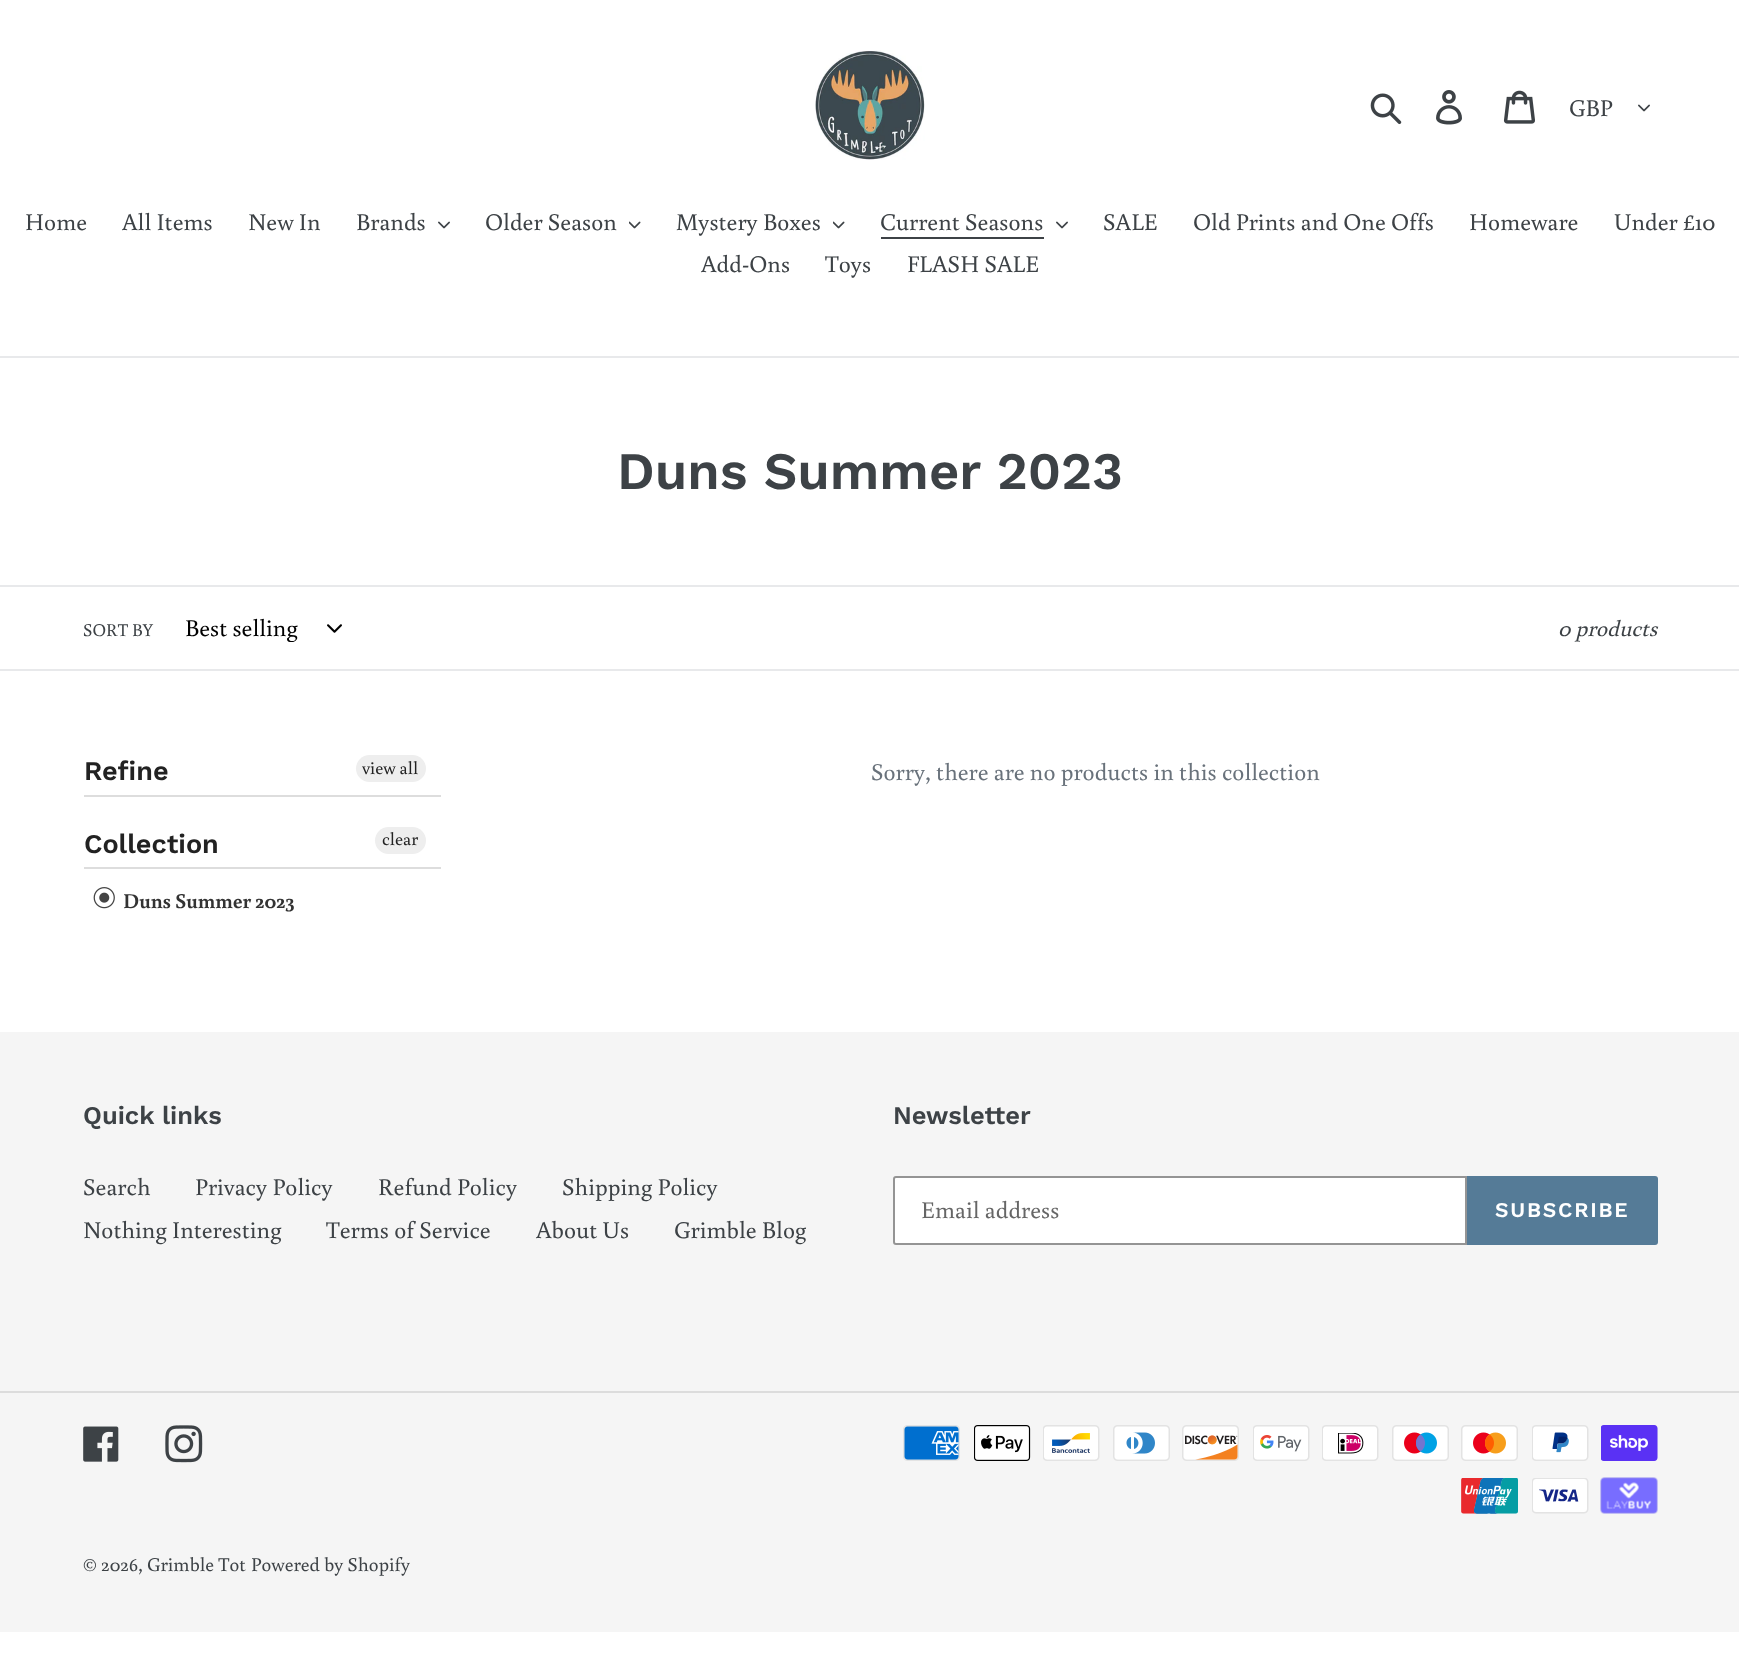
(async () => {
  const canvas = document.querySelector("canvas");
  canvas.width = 1739;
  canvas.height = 1669;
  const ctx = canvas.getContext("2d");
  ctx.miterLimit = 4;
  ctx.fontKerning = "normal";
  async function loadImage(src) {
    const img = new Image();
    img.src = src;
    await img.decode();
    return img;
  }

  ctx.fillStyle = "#ffffff";
  ctx.fillRect(0, 0, 1739, 1669);
  ctx.drawImage(await loadImage("img/1.png"), 815, 50, 110, 110);
  ctx.drawImage(await loadImage("img/2.png"), 1370, 93, 32, 32);
  ctx.drawImage(await loadImage("img/3.png"), 1436, 90, 26, 35);
  ctx.drawImage(await loadImage("img/4.png"), 1503, 90, 32, 34);
  ctx.drawImage(await loadImage("img/5.png"), 1638, 104, 12, 8);
  ctx.fillStyle = "#e8e9eb";
  ctx.fillRect(0, 356, 1739, 2);
  ctx.drawImage(await loadImage("img/5.png"), 438, 221, 12, 8);
  ctx.drawImage(await loadImage("img/6.png"), 629, 221, 12, 8);
  ctx.drawImage(await loadImage("img/6.png"), 833, 221, 12, 8);
  ctx.fillStyle = "#3d4246";
  ctx.fillRect(881, 237, 163, 2);
  ctx.drawImage(await loadImage("img/5.png"), 1056, 221, 12, 8);
  ctx.fillStyle = "#e8e9eb";
  ctx.fillRect(0, 585, 1739, 2);
  ctx.fillRect(0, 669, 1739, 2);
  ctx.drawImage(await loadImage("img/7.png"), 327, 624, 15, 9);
  ctx.fillStyle = "#dddddd";
  ctx.fillRect(84, 795, 357, 2);
  ctx.fillStyle = "#eeeeee";
  ctx.beginPath();
  ctx.roundRect(356, 755, 70, 27, 13.5);
  ctx.fill();
  ctx.beginPath();
  ctx.roundRect(375, 827, 51, 27, 13.5);
  ctx.fill();
  ctx.drawImage(await loadImage("img/8.png"), 93, 887, 22, 22);
  ctx.fillStyle = "#dddddd";
  ctx.fillRect(84, 867, 357, 2);
  ctx.fillStyle = "#f5f5f5";
  ctx.fillRect(0, 1032, 1739, 600);
  ctx.fillStyle = "#ffffff";
  ctx.beginPath();
  ctx.roundRect(894, 1177, 572, 67, [2, 0, 0, 2]);
  ctx.fill();
  ctx.strokeStyle = "#949494";
  ctx.lineWidth = 2;
  ctx.stroke();
  ctx.fillStyle = "#557b97";
  ctx.beginPath();
  ctx.roundRect(1467, 1176, 191, 69, [0, 3, 3, 0]);
  ctx.fill();
  ctx.fillStyle = "#dcdcdc";
  ctx.fillRect(0, 1391, 1739, 2);
  ctx.drawImage(await loadImage("img/9.png"), 83, 1426, 36, 36);
  ctx.drawImage(await loadImage("img/10.png"), 165, 1425, 38, 38);
  ctx.drawImage(await loadImage("img/11.png"), 903, 1425, 57, 36);
  ctx.drawImage(await loadImage("img/12.png"), 974, 1425, 57, 36);
  ctx.drawImage(await loadImage("img/13.png"), 1043, 1425, 57, 36);
  ctx.drawImage(await loadImage("img/14.png"), 1113, 1425, 57, 36);
  ctx.drawImage(await loadImage("img/15.png"), 1182, 1425, 57, 36);
  ctx.drawImage(await loadImage("img/16.png"), 1253, 1425, 57, 36);
  ctx.drawImage(await loadImage("img/17.png"), 1322, 1425, 57, 36);
  ctx.drawImage(await loadImage("img/18.png"), 1392, 1425, 57, 36);
  ctx.drawImage(await loadImage("img/19.png"), 1461, 1425, 57, 36);
  ctx.drawImage(await loadImage("img/20.png"), 1532, 1425, 57, 36);
  ctx.drawImage(await loadImage("img/21.png"), 1601, 1425, 57, 36);
  ctx.drawImage(await loadImage("img/22.png"), 1461, 1478, 57, 36);
  ctx.drawImage(await loadImage("img/23.png"), 1532, 1478, 57, 36);
  ctx.drawImage(await loadImage("img/24.png"), 1600, 1477, 58, 37);
  ctx.font = "24px Buenard";
  ctx.fillStyle = "#3d4246";
  for (const [text, x, y] of [
    ["GBP", 1569, 116],
    ["Home", 25, 230],
    ["All Items", 122, 230],
    ["New In", 248, 230],
    ["Brands", 356, 230],
    ["Older Season", 485, 230],
    ["Mystery Boxes", 676, 230],
    ["Current Seasons", 880, 230],
    ["SALE", 1103, 230],
    ["Old Prints and One Offs", 1193, 230],
    ["Homeware", 1469, 230],
    ["Under £10", 1614, 230],
    ["Add-Ons", 701, 272],
    ["Toys", 825, 272],
    ["FLASH SALE", 907, 272],
  ]) {
    ctx.fillText(text, x, y);
  }
  ctx.font = "600 52.5px Work Sans";
  ctx.fillText("Duns Summer 2023", 617, 489);
  ctx.font = "18px Buenard";
  ctx.fillText("SORT BY", 83, 636);
  ctx.save();
  ctx.beginPath();
  ctx.rect(185, 614, 127, 28);
  ctx.clip();
  ctx.font = "24px Buenard";
  ctx.fillStyle = "#000000";
  ctx.fillText("Best selling", 185, 636);
  ctx.restore();
  ctx.font = "italic 22.5px Buenard";
  ctx.fillText("0 products", 1558, 636);
  ctx.font = "600 27px Work Sans";
  ctx.fillStyle = "#222222";
  ctx.fillText("Refine", 84, 780);
  ctx.font = "18px Buenard";
  ctx.fillText("view all", 362, 774);
  ctx.fillText("clear", 382, 845);
  ctx.font = "bold 21px Buenard";
  ctx.fillStyle = "#333333";
  ctx.fillText("Duns Summer 2023", 123, 908);
  ctx.font = "600 27px Work Sans";
  ctx.fillStyle = "#222222";
  ctx.fillText("Collection", 84, 853);
  ctx.font = "24px Buenard";
  ctx.fillStyle = "#69727b";
  ctx.fillText("Sorry, there are no products in this collection", 871, 780);
  ctx.font = "600 25.5px Work Sans";
  ctx.fillStyle = "#3d4246";
  ctx.fillText("Quick links", 83, 1124);
  ctx.font = "24px Buenard";
  for (const [text, x, y] of [
    ["Search", 83, 1195],
    ["Privacy Policy", 195, 1195],
    ["Refund Policy", 378, 1195],
    ["Shipping Policy", 562, 1195],
    ["Nothing Interesting", 83, 1238],
    ["Terms of Service", 326, 1238],
    ["About Us", 536, 1238],
    ["Grimble Blog", 674, 1238],
  ]) {
    ctx.fillText(text, x, y);
  }
  ctx.font = "600 25.5px Work Sans";
  ctx.fillText("Newsletter", 893, 1124);
  ctx.font = "24px Buenard";
  ctx.fillStyle = "#666666";
  ctx.fillText("Email address", 921, 1218);
  ctx.letterSpacing = "1.75px";
  ctx.font = "600 21px Work Sans";
  ctx.fillStyle = "#ffffff";
  ctx.fillText("SUBSCRIBE", 1495, 1217);
  ctx.letterSpacing = "0px";
  ctx.font = "19.5px Buenard";
  ctx.fillStyle = "#3d4246";
  ctx.fillText("© 2026, Grimble Tot", 83, 1571);
  ctx.fillText("Powered by Shopify", 251, 1571);
})();
